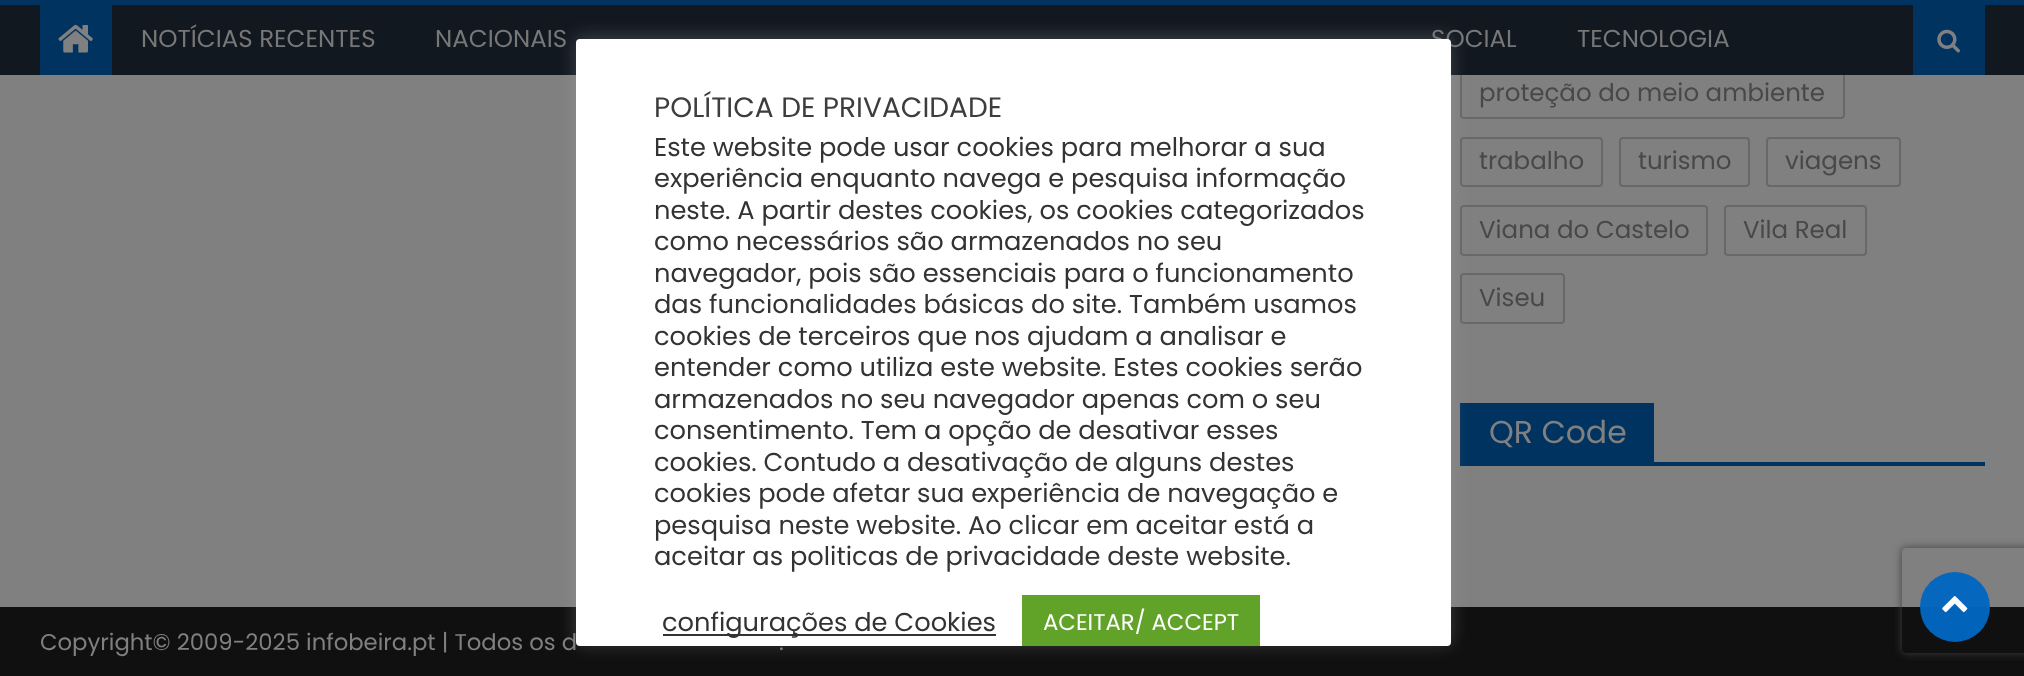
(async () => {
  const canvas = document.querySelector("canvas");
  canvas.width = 2024;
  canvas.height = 676;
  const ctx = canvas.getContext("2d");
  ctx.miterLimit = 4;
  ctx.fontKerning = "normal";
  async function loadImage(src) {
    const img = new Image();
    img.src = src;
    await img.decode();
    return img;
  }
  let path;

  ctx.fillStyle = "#808080";
  ctx.fillRect(0, 0, 2024, 676);
  ctx.beginPath();
  ctx.roundRect(1461, 68, 383, 50, 3);
  ctx.strokeStyle = "#686868";
  ctx.lineWidth = 2;
  ctx.stroke();
  for (const [x, y, w, h, color] of [
    [0, 5, 2024, 70, "#121820"],
    [0, 0, 2024, 5, "#013360"],
    [40, 5, 72, 70, "#013360"],
  ]) {
    ctx.fillStyle = color;
    ctx.fillRect(x, y, w, h);
  }
  ctx.drawImage(await loadImage("img/1.png"), 58, 24, 35, 29);
  ctx.fillRect(1913, 5, 72, 70);
  ctx.drawImage(await loadImage("img/2.png"), 1937, 29, 23, 24);
  ctx.beginPath();
  ctx.roundRect(1461, 138, 141, 48, 3);
  ctx.stroke();
  ctx.beginPath();
  ctx.roundRect(1620, 138, 129, 48, 3);
  ctx.stroke();
  ctx.beginPath();
  ctx.roundRect(1767, 138, 133, 48, 3);
  ctx.stroke();
  ctx.beginPath();
  ctx.roundRect(1461, 206, 246, 49, 3);
  ctx.stroke();
  ctx.beginPath();
  ctx.roundRect(1725, 206, 141, 49, 3);
  ctx.stroke();
  ctx.beginPath();
  ctx.roundRect(1461, 274, 103, 49, 3);
  ctx.stroke();
  for (const [x, y, w, h, color] of [
    [1460, 462, 525, 4, "#013360"],
    [1460, 403, 4, 63, "#013360"],
    [1464, 403, 190, 59, "#013360"],
    [0, 607, 2024, 69, "#101010"],
  ]) {
    ctx.fillStyle = color;
    ctx.fillRect(x, y, w, h);
  }
  ctx.save();
  path = new Path2D("M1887 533H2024V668H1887ZM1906 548H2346C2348 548 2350 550 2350 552V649C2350 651 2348 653 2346 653H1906C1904 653 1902 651 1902 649V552C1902 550 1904 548 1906 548Z");
  ctx.clip(path, "evenodd");
  ctx.fillStyle = "#404040";
  ctx.filter = "blur(4.5px)";
  ctx.beginPath();
  ctx.roundRect(1902, 548, 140, 105, 4);
  ctx.fill();
  ctx.filter = "none";
  ctx.restore();
  ctx.fillStyle = "rgba(1, 102, 191, 0.97)";
  ctx.beginPath();
  ctx.arc(1955, 607, 35, 0, Math.PI * 2);
  ctx.fill();
  ctx.drawImage(await loadImage("img/3.png"), 1942, 596, 26, 17);
  ctx.fillStyle = "rgba(172, 171, 171, 0.3)";
  ctx.filter = "blur(9px)";
  ctx.beginPath();
  ctx.roundRect(576, 37, 875, 607, 4);
  ctx.fill();
  ctx.filter = "none";
  ctx.font = "24.5px Poppins";
  ctx.fillStyle = "#777777";
  for (const [text, x, y] of [
    ["NOTÍCIAS RECENTES", 141, 47],
    ["NACIONAIS", 435, 47],
    ["SOCIAL", 1431, 47],
    ["TECNOLOGIA", 1577, 47],
  ]) {
    ctx.fillText(text, x, y);
  }
  ctx.fillStyle = "#484848";
  for (const [text, x, y] of [
    ["proteção do meio ambiente", 1479, 101],
    ["trabalho", 1479, 169],
    ["turismo", 1638, 169],
    ["viagens", 1785, 169],
    ["Viana do Castelo", 1479, 238],
    ["Vila Real", 1743, 238],
    ["Viseu", 1479, 306],
  ]) {
    ctx.fillText(text, x, y);
  }
  ctx.font = "31.5px Poppins";
  ctx.fillStyle = "#808080";
  ctx.fillText("QR Code", 1489, 443);
  ctx.font = "22.75px Poppins";
  ctx.fillText("Copyright© 2009-2025 infobeira.pt | Todos os d", 40, 650);
  ctx.fillText(".", 779, 650);
  ctx.fillStyle = "#ffffff";
  ctx.beginPath();
  ctx.roundRect(576, 39, 875, 607, 4);
  ctx.fill();
  ctx.font = "28px Poppins";
  ctx.fillStyle = "#3d3d3d";
  ctx.fillText("POLÍTICA DE PRIVACIDADE", 654, 117);
  ctx.font = "25.7px Poppins";
  ctx.fillStyle = "#333333";
  for (const [text, x, y] of [
    ["Este website pode usar cookies para melhorar a sua", 654, 156],
    ["experiência enquanto navega e pesquisa informação", 654, 187],
    ["neste. A partir destes cookies, os cookies categorizados", 654, 219],
    ["como necessários são armazenados no seu", 654, 250],
    ["navegador, pois são essenciais para o funcionamento", 654, 282],
    ["das funcionalidades básicas do site. Também usamos", 654, 313],
    ["cookies de terceiros que nos ajudam a analisar e", 654, 345],
    ["entender como utiliza este website. Estes cookies serão", 654, 376],
    ["armazenados no seu navegador apenas com o seu", 654, 408],
    ["consentimento. Tem a opção de desativar esses", 654, 439],
    ["cookies. Contudo a desativação de alguns destes", 654, 471],
    ["cookies pode afetar sua experiência de navegação e", 654, 502],
    ["pesquisa neste website. Ao clicar em aceitar está a", 654, 534],
    ["aceitar as politicas de privacidade deste website.", 654, 565],
  ]) {
    ctx.fillText(text, x, y);
  }
  ctx.fillRect(663, 634, 333, 2);
  ctx.fillText("configurações de Cookies", 662, 631);
  ctx.fillStyle = "#61a229";
  ctx.fillRect(1022, 595, 238, 51);
  ctx.font = "22.75px Poppins";
  ctx.fillStyle = "#ffffff";
  ctx.fillText("ACEITAR/ ACCEPT", 1043, 630);
})();
